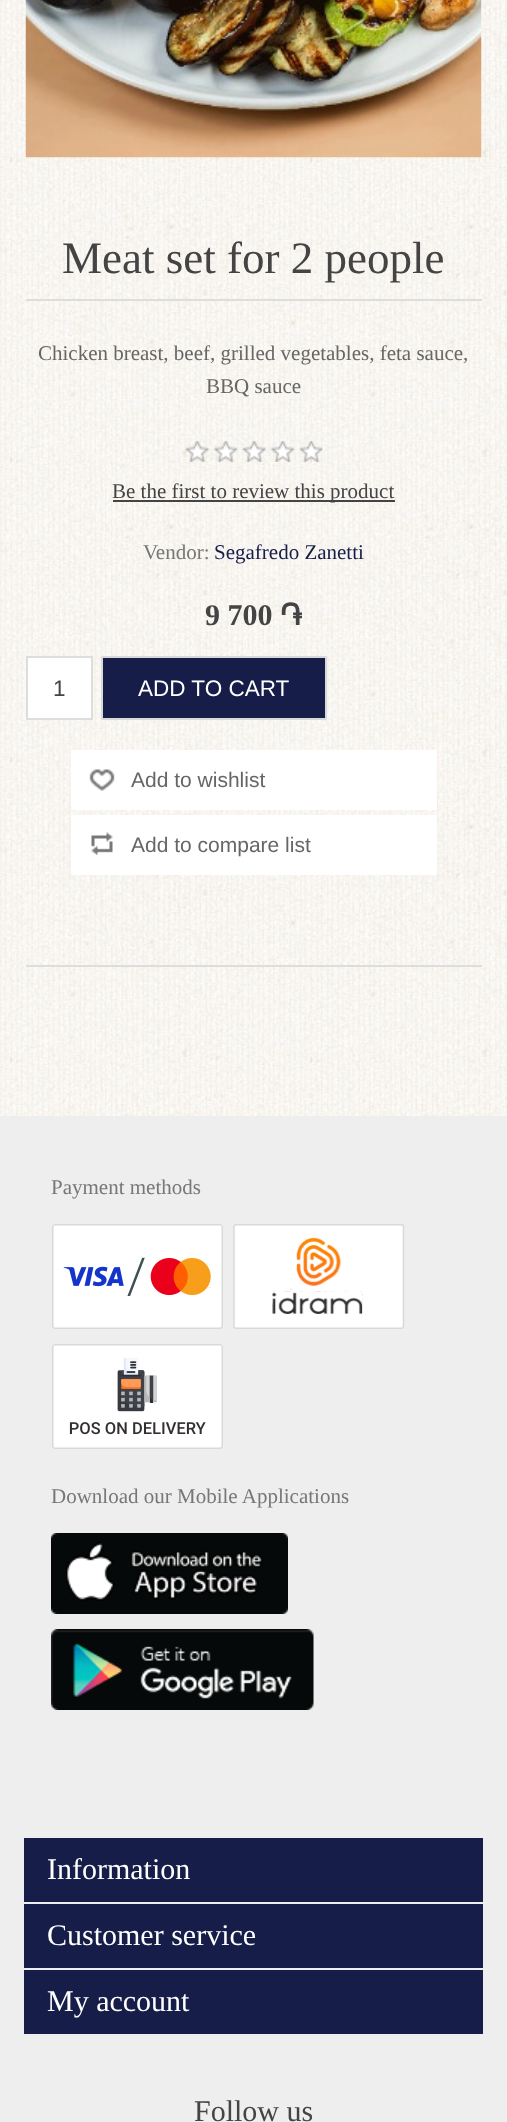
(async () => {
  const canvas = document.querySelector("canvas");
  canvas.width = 507;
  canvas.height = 2122;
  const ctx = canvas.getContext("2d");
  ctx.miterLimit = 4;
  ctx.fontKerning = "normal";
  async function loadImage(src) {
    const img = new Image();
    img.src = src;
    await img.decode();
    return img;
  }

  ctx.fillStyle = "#ffffff";
  ctx.fillRect(0, 0, 507, 2122);
  ctx.drawImage(await loadImage("img/1.png"), 0, 0, 507, 1116);
  ctx.fillStyle = "#dddddd";
  ctx.fillRect(26, 965, 456, 2);
  ctx.drawImage(await loadImage("img/2.png"), 25, 0, 457, 158);
  ctx.fillRect(26, 299, 456, 2);
  ctx.drawImage(await loadImage("img/3.png"), 185, 441, 138, 21);
  ctx.fillStyle = "#444444";
  ctx.fillRect(113, 500, 282, 2);
  ctx.fillStyle = "#ffffff";
  ctx.beginPath();
  ctx.rect(27, 657, 65, 62);
  ctx.fill();
  ctx.strokeStyle = "#dddddd";
  ctx.lineWidth = 2;
  ctx.stroke();
  ctx.fillStyle = "#161d48";
  ctx.beginPath();
  ctx.roundRect(102, 657, 224, 62, 0.5);
  ctx.fill();
  ctx.strokeStyle = "#d9d9d9";
  ctx.stroke();
  ctx.fillStyle = "#ffffff";
  ctx.fillRect(71, 750, 366, 60);
  ctx.drawImage(await loadImage("img/4.png"), 89, 769, 26, 22);
  ctx.fillRect(71, 815, 366, 60);
  ctx.drawImage(await loadImage("img/5.png"), 91, 832, 22, 23);
  ctx.fillStyle = "#eeeeee";
  ctx.fillRect(0, 1116, 507, 1006);
  ctx.drawImage(await loadImage("img/6.png"), 52, 1224, 171, 105);
  ctx.drawImage(await loadImage("img/7.png"), 233, 1224, 172, 105);
  ctx.drawImage(await loadImage("img/8.png"), 52, 1344, 171, 105);
  ctx.drawImage(await loadImage("img/9.png"), 51, 1533, 237, 81);
  ctx.drawImage(await loadImage("img/10.png"), 51, 1629, 263, 81);
  for (const [x, y, w, h, color] of [
    [24, 1838, 459, 64, "#161d48"],
    [24, 1904, 459, 64, "#161d48"],
    [24, 1970, 459, 64, "#161d48"],
  ]) {
    ctx.fillStyle = color;
    ctx.fillRect(x, y, w, h);
  }
  ctx.font = "45px Liberation Serif";
  ctx.fillStyle = "#444444";
  ctx.fillText("Meat set for 2 people", 62, 273);
  ctx.font = "21px Liberation Serif";
  ctx.fillStyle = "#666666";
  ctx.fillText("Chicken breast, beef, grilled vegetables, feta sauce,", 38, 360);
  ctx.fillText("BBQ sauce", 206, 393);
  ctx.fillStyle = "#444444";
  ctx.fillText("Be the first to review this product", 112, 498);
  ctx.fillStyle = "#777777";
  ctx.fillText("Vendor:", 143, 559);
  ctx.fillStyle = "#161d48";
  ctx.fillText("Segafredo Zanetti", 214, 559);
  ctx.font = "bold 30px Liberation Serif";
  ctx.fillStyle = "#444444";
  ctx.fillText("9 700", 205, 625);
  ctx.font = "bold 30px FreeSans";
  ctx.fillText("֏", 280, 625);
  ctx.font = "22.5px Liberation Sans";
  ctx.fillText("1", 53, 696);
  ctx.fillStyle = "#ffffff";
  ctx.fillText("ADD TO CART", 138, 696);
  ctx.font = "21px Liberation Sans";
  ctx.fillStyle = "#666666";
  ctx.fillText("Add to wishlist", 131, 787);
  ctx.fillText("Add to compare list", 131, 852);
  ctx.font = "21px Liberation Serif";
  ctx.fillStyle = "#777777";
  ctx.fillText("Payment methods", 51, 1194);
  ctx.fillText("Download our Mobile Applications", 51, 1503);
  ctx.font = "30px Liberation Serif";
  ctx.fillStyle = "#ffffff";
  for (const [text, x, y] of [
    ["Information", 47, 1879],
    ["Customer service", 47, 1945],
    ["My account", 47, 2011],
  ]) {
    ctx.fillText(text, x, y);
  }
  ctx.fillStyle = "#444444";
  ctx.fillText("Follow us", 194, 2121);
})();
